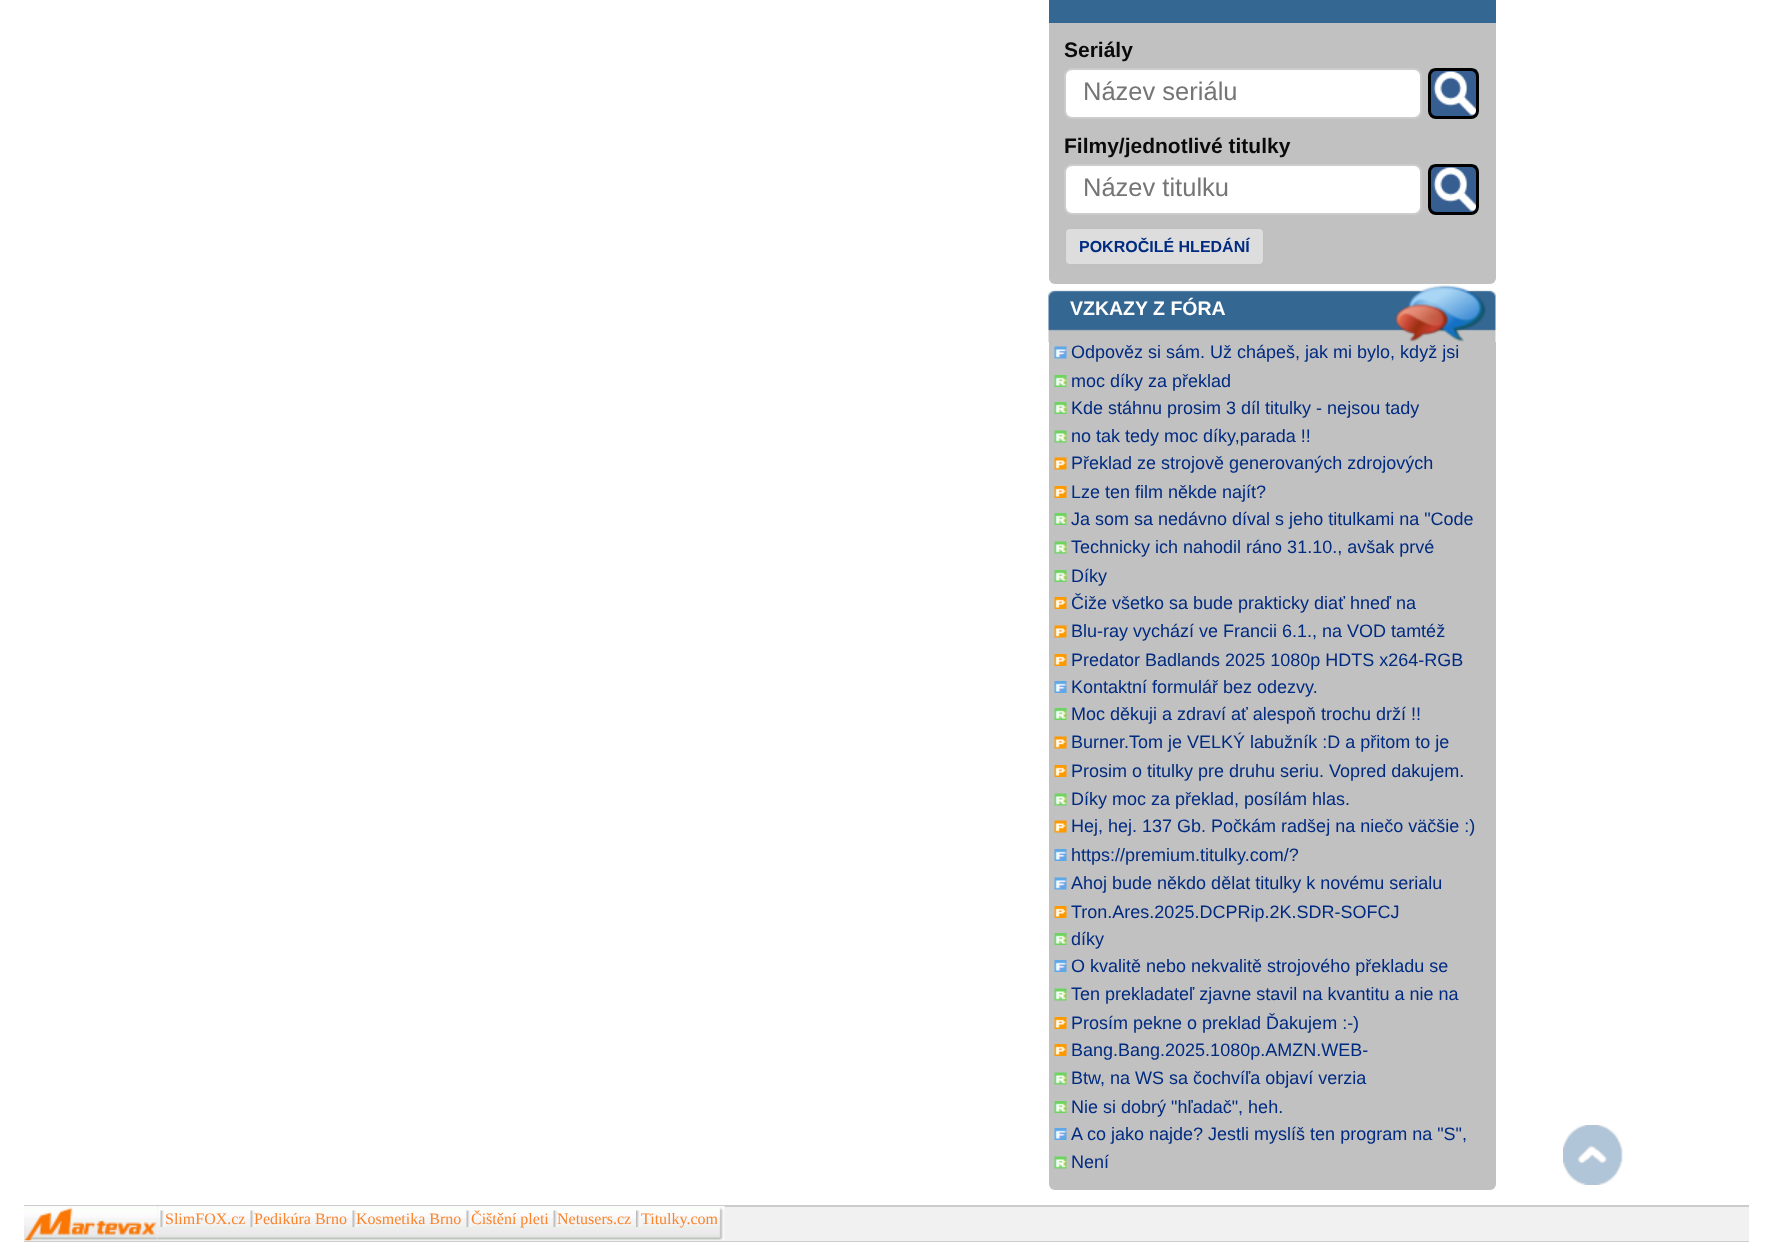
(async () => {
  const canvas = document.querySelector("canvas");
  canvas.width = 1772;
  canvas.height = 1259;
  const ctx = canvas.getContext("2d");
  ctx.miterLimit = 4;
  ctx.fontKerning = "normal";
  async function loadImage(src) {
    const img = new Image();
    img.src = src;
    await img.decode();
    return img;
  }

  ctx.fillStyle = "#ffffff";
  ctx.fillRect(0, 0, 1772, 1259);
  ctx.fillStyle = "#c1c1c1";
  ctx.beginPath();
  ctx.roundRect(1049, -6, 447, 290, 6);
  ctx.fill();
  ctx.fillStyle = "#356793";
  ctx.fillRect(1049, 0, 447, 23);
  ctx.fillStyle = "#ffffff";
  ctx.beginPath();
  ctx.roundRect(1065, 69, 356, 49, 7);
  ctx.fill();
  ctx.strokeStyle = "#cccccc";
  ctx.lineWidth = 2;
  ctx.stroke();
  ctx.drawImage(await loadImage("img/1.png"), 1429, 69, 49, 48);
  ctx.beginPath();
  ctx.roundRect(1429.5, 69.5, 48, 48, 6.5);
  ctx.strokeStyle = "#000000";
  ctx.lineWidth = 3;
  ctx.stroke();
  ctx.beginPath();
  ctx.roundRect(1065, 165, 356, 49, 7);
  ctx.fill();
  ctx.strokeStyle = "#cccccc";
  ctx.lineWidth = 2;
  ctx.stroke();
  ctx.drawImage(await loadImage("img/2.png"), 1429, 165, 49, 48);
  ctx.beginPath();
  ctx.roundRect(1429.5, 165.5, 48, 48, 6.5);
  ctx.strokeStyle = "#000000";
  ctx.lineWidth = 3;
  ctx.stroke();
  ctx.fillStyle = "#dddddd";
  ctx.beginPath();
  ctx.roundRect(1065, 228, 199, 37, 5);
  ctx.fill();
  ctx.strokeStyle = "#c0c0c0";
  ctx.lineWidth = 2;
  ctx.stroke();
  ctx.drawImage(await loadImage("img/3.png"), 1048, 285, 448, 57);
  ctx.fillStyle = "#c1c1c1";
  ctx.beginPath();
  ctx.roundRect(1049, 342, 447, 848, [0, 0, 6, 6]);
  ctx.fill();
  ctx.drawImage(await loadImage("img/4.png"), 1054, 346, 13, 13);
  ctx.drawImage(await loadImage("img/5.png"), 1054, 375, 13, 12);
  ctx.drawImage(await loadImage("img/5.png"), 1054, 402, 13, 12);
  ctx.drawImage(await loadImage("img/6.png"), 1054, 430, 13, 13);
  ctx.drawImage(await loadImage("img/7.png"), 1054, 457, 13, 13);
  ctx.drawImage(await loadImage("img/8.png"), 1054, 486, 13, 12);
  ctx.drawImage(await loadImage("img/5.png"), 1054, 513, 13, 12);
  ctx.drawImage(await loadImage("img/6.png"), 1054, 541, 13, 13);
  ctx.drawImage(await loadImage("img/5.png"), 1054, 570, 13, 12);
  ctx.drawImage(await loadImage("img/8.png"), 1054, 597, 13, 12);
  ctx.drawImage(await loadImage("img/7.png"), 1054, 625, 13, 13);
  ctx.drawImage(await loadImage("img/8.png"), 1054, 654, 13, 12);
  ctx.drawImage(await loadImage("img/9.png"), 1054, 681, 13, 12);
  ctx.drawImage(await loadImage("img/5.png"), 1054, 708, 13, 12);
  ctx.drawImage(await loadImage("img/7.png"), 1054, 736, 13, 13);
  ctx.drawImage(await loadImage("img/8.png"), 1054, 765, 13, 12);
  ctx.drawImage(await loadImage("img/6.png"), 1054, 793, 13, 13);
  ctx.drawImage(await loadImage("img/7.png"), 1054, 820, 13, 13);
  ctx.drawImage(await loadImage("img/9.png"), 1054, 849, 13, 12);
  ctx.drawImage(await loadImage("img/4.png"), 1054, 877, 13, 13);
  ctx.drawImage(await loadImage("img/8.png"), 1054, 906, 13, 12);
  ctx.drawImage(await loadImage("img/5.png"), 1054, 933, 13, 12);
  ctx.drawImage(await loadImage("img/9.png"), 1054, 960, 13, 12);
  ctx.drawImage(await loadImage("img/6.png"), 1054, 988, 13, 13);
  ctx.drawImage(await loadImage("img/8.png"), 1054, 1017, 13, 12);
  ctx.drawImage(await loadImage("img/8.png"), 1054, 1044, 13, 12);
  ctx.drawImage(await loadImage("img/6.png"), 1054, 1072, 13, 13);
  ctx.drawImage(await loadImage("img/5.png"), 1054, 1101, 13, 12);
  ctx.drawImage(await loadImage("img/9.png"), 1054, 1128, 13, 12);
  ctx.drawImage(await loadImage("img/6.png"), 1054, 1156, 13, 13);
  for (const [x, y, w, h, color] of [
    [24, 1207, 1725, 34, "#f1f1f1"],
    [24, 1205, 1725, 2, "#cccccc"],
    [24, 1241, 1725, 1, "#cccccc"],
  ]) {
    ctx.fillStyle = color;
    ctx.fillRect(x, y, w, h);
  }
  ctx.drawImage(await loadImage("img/11.png"), 157, 1206, 560, 34);
  ctx.drawImage(await loadImage("img/10.png"), 24, 1206, 134, 35);
  ctx.drawImage(await loadImage("img/12.png"), 160, 1210, 5, 17);
  ctx.drawImage(await loadImage("img/12.png"), 250, 1210, 5, 17);
  ctx.drawImage(await loadImage("img/13.png"), 352, 1210, 5, 17);
  ctx.drawImage(await loadImage("img/12.png"), 466, 1210, 5, 17);
  ctx.drawImage(await loadImage("img/13.png"), 553, 1210, 5, 17);
  ctx.drawImage(await loadImage("img/14.png"), 636, 1210, 5, 17);
  ctx.drawImage(await loadImage("img/16.png"), 1563, 1125, 60, 60);
  ctx.font = "bold 21px Liberation Sans";
  ctx.fillStyle = "#0a0a0a";
  ctx.fillText("Seriály", 1064, 57);
  ctx.font = "25.5px Liberation Sans";
  ctx.fillStyle = "#757575";
  ctx.fillText("Název seriálu", 1083, 100);
  ctx.font = "bold 21px Liberation Sans";
  ctx.fillStyle = "#0a0a0a";
  ctx.fillText("Filmy/jednotlivé titulky", 1064, 153);
  ctx.font = "25.5px Liberation Sans";
  ctx.fillStyle = "#757575";
  ctx.fillText("Název titulku", 1083, 196);
  ctx.font = "bold 16px Liberation Sans";
  ctx.fillStyle = "#002b81";
  ctx.fillText("POKROČILÉ HLEDÁNÍ", 1079, 252);
  ctx.font = "bold 19.5px Liberation Sans";
  ctx.fillStyle = "#ffffff";
  ctx.fillText("VZKAZY Z FÓRA", 1070, 315);
  ctx.font = "18px Liberation Sans";
  ctx.fillStyle = "#002b81";
  for (const [text, x, y] of [
    ["Odpověz si sám. Už chápeš, jak mi bylo, když jsi", 1071, 358],
    ["moc díky za překlad", 1071, 387],
    ["Kde stáhnu prosim 3 díl titulky - nejsou tady", 1071, 414],
    ["no tak tedy moc díky,parada !!", 1071, 442],
    ["Překlad ze strojově generovaných zdrojových", 1071, 469],
    ["Lze ten film někde najít?", 1071, 498],
    ["Ja som sa nedávno díval s jeho titulkami na \"Code", 1071, 525],
    ["Technicky ich nahodil ráno 31.10., avšak prvé", 1071, 553],
    ["Díky", 1071, 582],
    ["Čiže všetko sa bude prakticky diať hneď na", 1071, 609],
    ["Blu-ray vychází ve Francii 6.1., na VOD tamtéž", 1071, 637],
    ["Predator Badlands 2025 1080p HDTS x264-RGB", 1071, 666],
    ["Kontaktní formulář bez odezvy.", 1071, 693],
    ["Moc děkuji a zdraví ať alespoň trochu drží !!", 1071, 720],
    ["Burner.Tom je VELKÝ labužník :D a přitom to je", 1071, 748],
    ["Prosim o titulky pre druhu seriu. Vopred dakujem.", 1071, 777],
    ["Díky moc za překlad, posílám hlas.", 1071, 805],
    ["Hej, hej. 137 Gb. Počkám radšej na niečo väčšie :)", 1071, 832],
    ["https://premium.titulky.com/?", 1071, 861],
    ["Ahoj bude někdo dělat titulky k novému serialu", 1071, 889],
    ["Tron.Ares.2025.DCPRip.2K.SDR-SOFCJ", 1071, 918],
    ["díky", 1071, 945],
    ["O kvalitě nebo nekvalitě strojového překladu se", 1071, 972],
    ["Ten prekladateľ zjavne stavil na kvantitu a nie na", 1071, 1000],
    ["Prosím pekne o preklad Ďakujem :-)", 1071, 1029],
    ["Bang.Bang.2025.1080p.AMZN.WEB-", 1071, 1056],
    ["Btw, na WS sa čochvíľa objaví verzia", 1071, 1084],
    ["Nie si dobrý \"hľadač\", heh.", 1071, 1113],
    ["A co jako najde? Jestli myslíš ten program na \"S\",", 1071, 1140],
    ["Není", 1071, 1168],
  ]) {
    ctx.fillText(text, x, y);
  }
  ctx.font = "16px Liberation Serif";
  ctx.fillStyle = "#f9852d";
  for (const [text, x, y] of [
    ["SlimFOX.cz", 165, 1224],
    ["Pedikúra Brno", 254, 1224],
    ["Kosmetika Brno", 356, 1224],
    ["Čištění pleti", 471, 1224],
    ["Netusers.cz", 557, 1224],
    ["Titulky.com", 641, 1224],
  ]) {
    ctx.fillText(text, x, y);
  }
  ctx.drawImage(await loadImage("img/15.png"), 717, 1206, 8, 34);
})();
